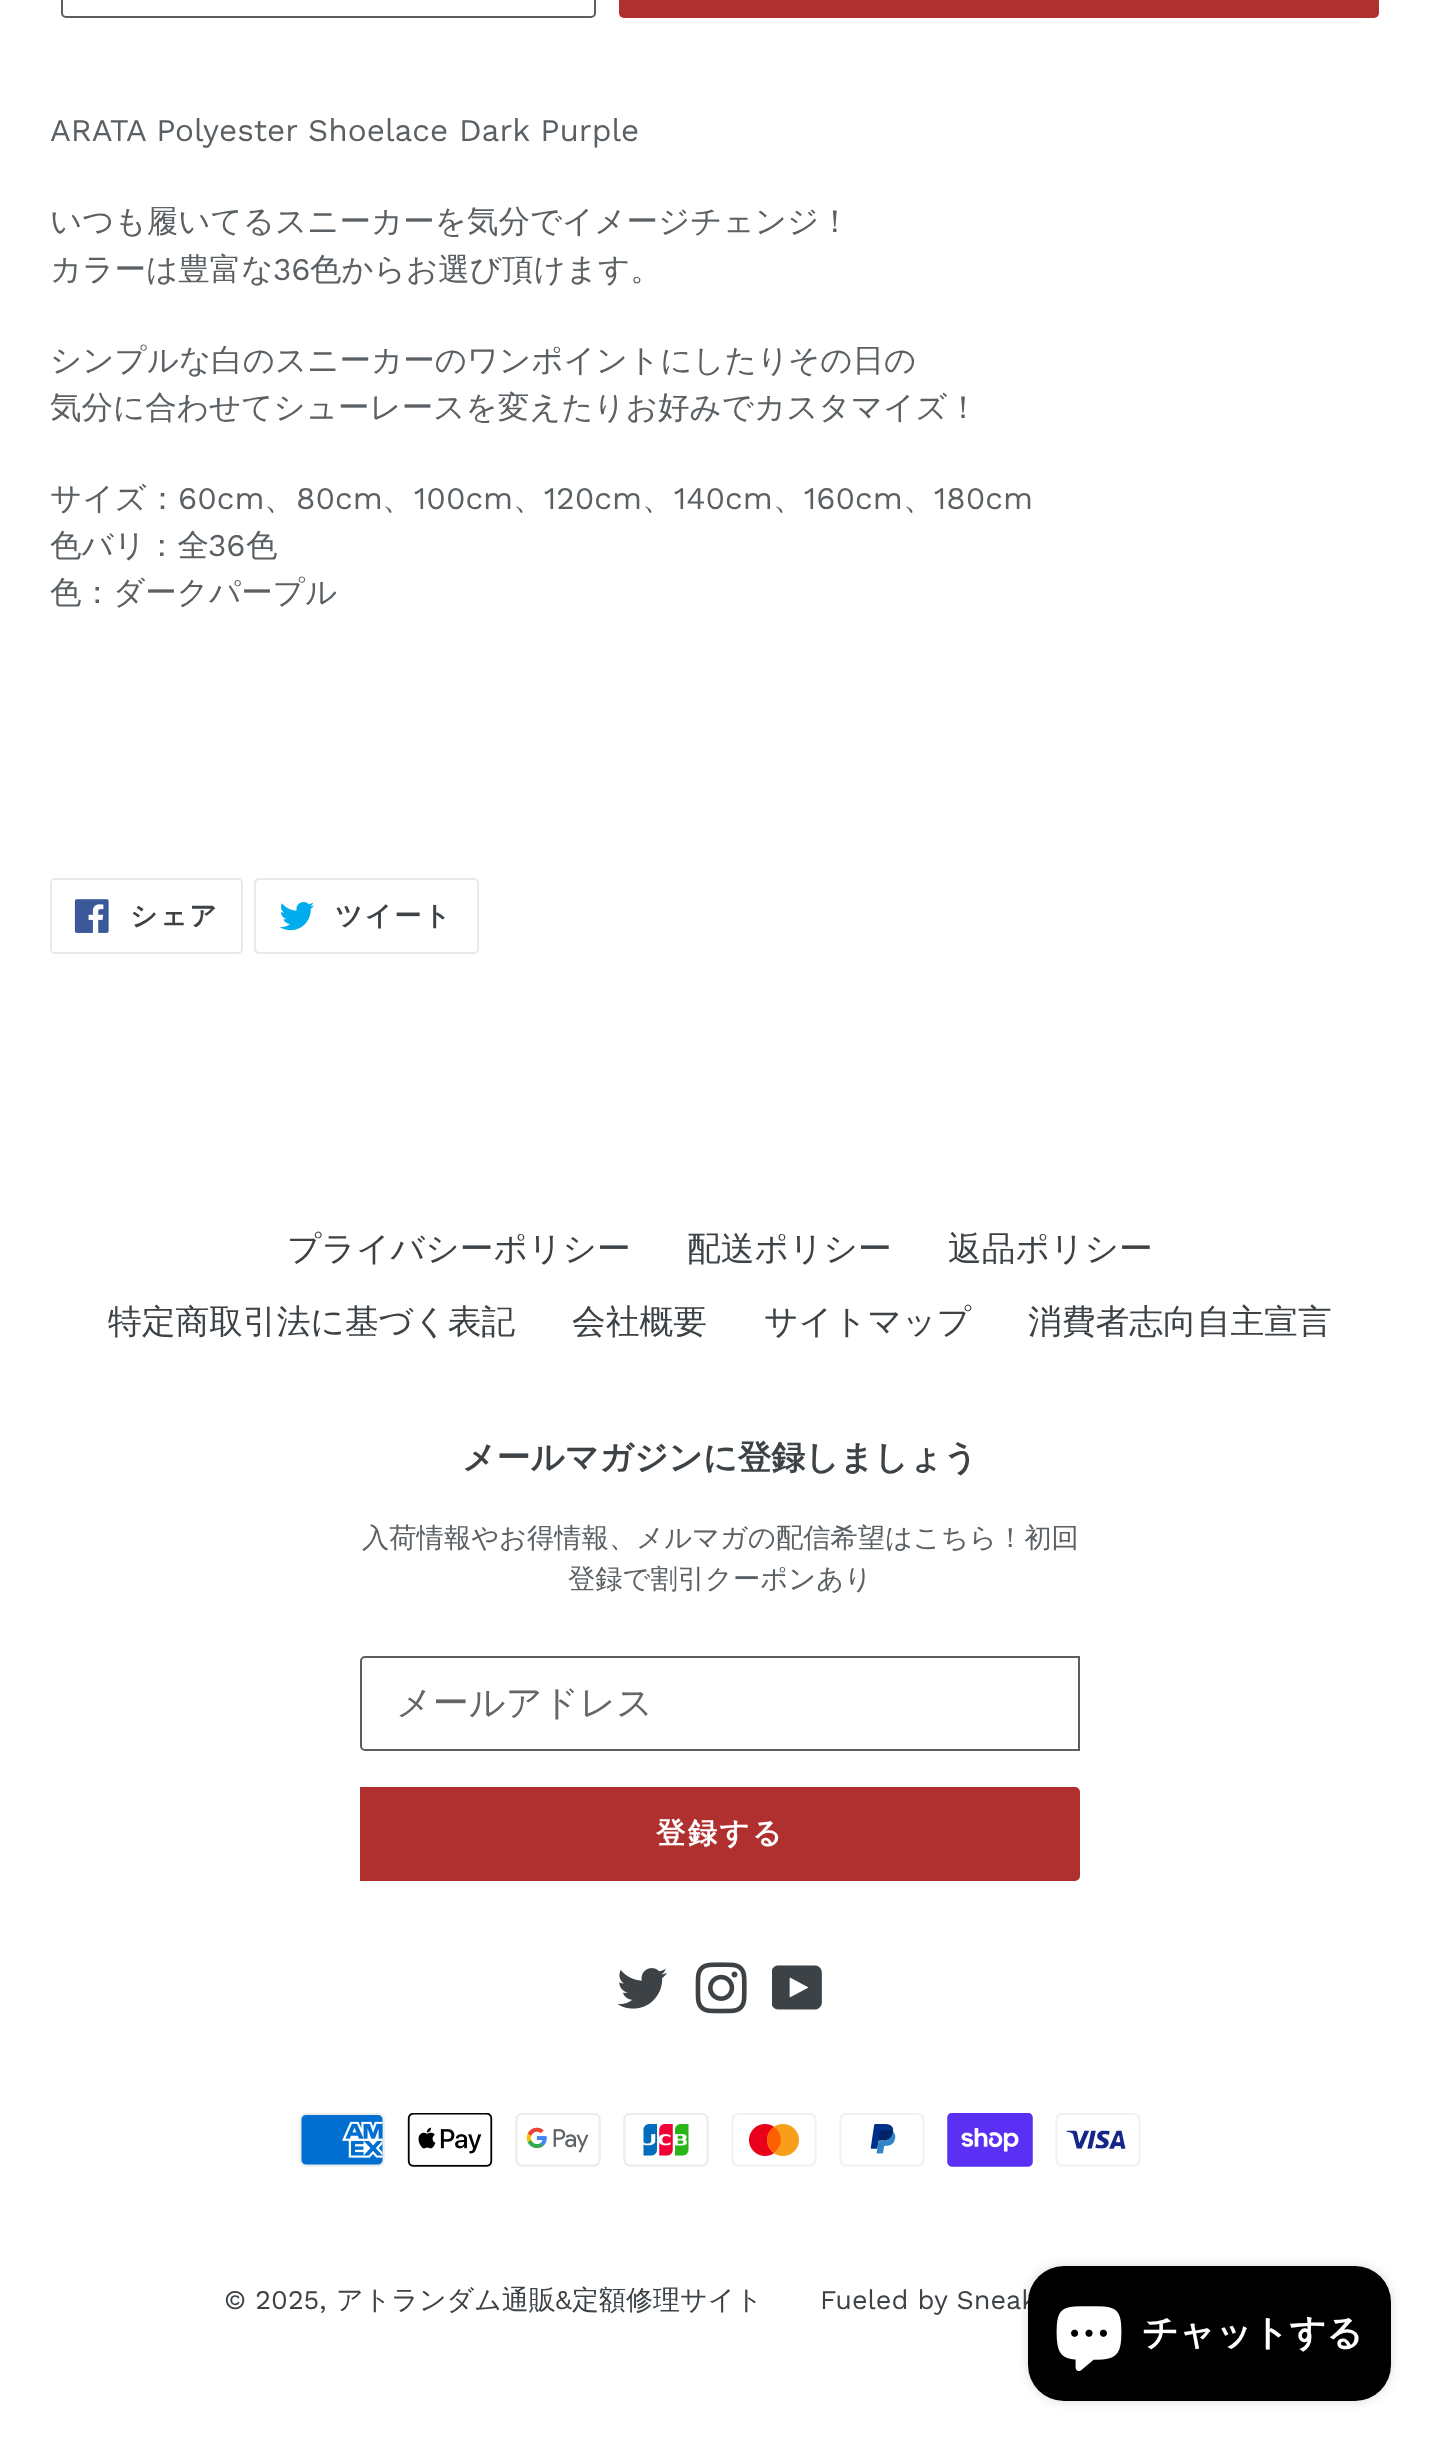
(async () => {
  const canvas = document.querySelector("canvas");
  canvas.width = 1438;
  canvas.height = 2446;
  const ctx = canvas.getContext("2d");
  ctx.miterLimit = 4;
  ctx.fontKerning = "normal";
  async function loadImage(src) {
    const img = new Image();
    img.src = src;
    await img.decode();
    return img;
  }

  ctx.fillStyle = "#ffffff";
  ctx.fillRect(0, 0, 1438, 2446);
  ctx.beginPath();
  ctx.roundRect(62, -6, 533, 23, 4);
  ctx.strokeStyle = "#5a5e62";
  ctx.lineWidth = 2;
  ctx.stroke();
  ctx.fillStyle = "#b02f2f";
  ctx.beginPath();
  ctx.roundRect(619, -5, 760, 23, 5);
  ctx.fill();
  ctx.beginPath();
  ctx.roundRect(51, 879, 191, 74, 4);
  ctx.strokeStyle = "#e8e9eb";
  ctx.stroke();
  ctx.drawImage(await loadImage("img/1.png"), 74, 899, 35, 34);
  ctx.beginPath();
  ctx.roundRect(255, 879, 223, 74, 4);
  ctx.stroke();
  ctx.drawImage(await loadImage("img/2.png"), 279, 902, 35, 29);
  ctx.beginPath();
  ctx.roundRect(361, 1657, 718, 93, [4, 0, 0, 4]);
  ctx.strokeStyle = "#5a5e62";
  ctx.stroke();
  ctx.beginPath();
  ctx.roundRect(360, 1787, 720, 94, [0, 5, 5, 0]);
  ctx.fill();
  ctx.drawImage(await loadImage("img/3.png"), 617, 1968, 50, 41);
  ctx.drawImage(await loadImage("img/4.png"), 695, 1962, 52, 52);
  ctx.drawImage(await loadImage("img/5.png"), 772, 1965, 50, 45);
  ctx.drawImage(await loadImage("img/6.png"), 299, 2113, 86, 54);
  ctx.drawImage(await loadImage("img/7.png"), 407, 2113, 86, 54);
  ctx.drawImage(await loadImage("img/8.png"), 515, 2113, 86, 54);
  ctx.drawImage(await loadImage("img/9.png"), 623, 2113, 86, 54);
  ctx.drawImage(await loadImage("img/10.png"), 731, 2113, 86, 54);
  ctx.drawImage(await loadImage("img/11.png"), 839, 2113, 86, 54);
  ctx.drawImage(await loadImage("img/12.png"), 947, 2113, 86, 54);
  ctx.drawImage(await loadImage("img/13.png"), 1055, 2113, 86, 54);
  ctx.fillStyle = "rgba(0, 0, 0, 0.15)";
  ctx.filter = "blur(5.5px)";
  ctx.beginPath();
  ctx.roundRect(1028, 2266, 363, 135, 36);
  ctx.fill();
  ctx.filter = "none";
  ctx.font = "31.5px Work Sans";
  ctx.fillStyle = "#5b6064";
  ctx.fillText("ARATA Polyester Shoelace Dark Purple", 50, 141);
  ctx.font = "500 31.5px WenQuanYi Zen Hei";
  ctx.fillText("いつも履いてるスニーカーを気分でイメージチェンジ！", 50, 232);
  ctx.fillText("カラーは豊富な", 50, 280);
  ctx.font = "31.5px Work Sans";
  ctx.fillText("36", 273, 280);
  ctx.font = "500 31.5px WenQuanYi Zen Hei";
  for (const [text, x, y] of [
    ["色からお選び頂けます。", 310, 280],
    ["シンプルな白のスニーカーのワンポイントにしたり", 50, 371],
    ["その日の", 788, 371],
    ["気分に合わせてシューレースを変えたりお好みでカスタマイズ！", 50, 418],
    ["サイズ：", 50, 509],
  ]) {
    ctx.fillText(text, x, y);
  }
  ctx.font = "31.5px Work Sans";
  ctx.fillText("60cm", 178, 509);
  ctx.font = "500 31.5px WenQuanYi Zen Hei";
  ctx.fillText("、", 264, 509);
  ctx.font = "31.5px Work Sans";
  ctx.fillText("80cm", 296, 509);
  ctx.font = "500 31.5px WenQuanYi Zen Hei";
  ctx.fillText("、", 382, 509);
  ctx.font = "31.5px Work Sans";
  ctx.fillText("100cm", 414, 509);
  ctx.font = "500 31.5px WenQuanYi Zen Hei";
  ctx.fillText("、", 513, 509);
  ctx.font = "31.5px Work Sans";
  ctx.fillText("120cm", 544, 509);
  ctx.font = "500 31.5px WenQuanYi Zen Hei";
  ctx.fillText("、", 642, 509);
  ctx.font = "31.5px Work Sans";
  ctx.fillText("140cm", 674, 509);
  ctx.font = "500 31.5px WenQuanYi Zen Hei";
  ctx.fillText("、", 773, 509);
  ctx.font = "31.5px Work Sans";
  ctx.fillText("160cm", 804, 509);
  ctx.font = "500 31.5px WenQuanYi Zen Hei";
  ctx.fillText("、", 903, 509);
  ctx.font = "31.5px Work Sans";
  ctx.fillText("180cm", 934, 509);
  ctx.font = "500 31.5px WenQuanYi Zen Hei";
  ctx.fillText("色バリ：全", 50, 556);
  ctx.font = "31.5px Work Sans";
  ctx.fillText("36", 208, 556);
  ctx.font = "500 31.5px WenQuanYi Zen Hei";
  ctx.fillText("色", 246, 556);
  ctx.fillText("色：ダークパープル", 50, 603);
  ctx.letterSpacing = "2px";
  ctx.font = "bold 27px WenQuanYi Zen Hei";
  ctx.fillStyle = "#3d4246";
  ctx.fillText("シェア", 130, 925);
  ctx.fillText("ツイート", 335, 925);
  ctx.letterSpacing = "0px";
  ctx.font = "500 33.75px WenQuanYi Zen Hei";
  for (const [text, x, y] of [
    ["プライバシーポリシー", 287, 1260],
    ["配送ポリシー", 687, 1260],
    ["返品ポリシー", 948, 1260],
    ["特定商取引法に基づく表記", 108, 1333],
    ["会社概要", 572, 1333],
    ["サイトマップ", 764, 1333],
    ["消費者志向自主宣言", 1028, 1333],
  ]) {
    ctx.fillText(text, x, y);
  }
  ctx.font = "bold 33.75px WenQuanYi Zen Hei";
  ctx.fillText("メールマガジンに登録しましょう", 462, 1469);
  ctx.font = "500 27.3px WenQuanYi Zen Hei";
  ctx.fillStyle = "#5b6064";
  ctx.fillText("入荷情報やお得情報、メルマガの配信希望はこちら！初回", 362, 1547);
  ctx.fillText("登録で割引クーポンあり", 568, 1588);
  ctx.font = "500 36px WenQuanYi Zen Hei";
  ctx.fillStyle = "#666666";
  ctx.fillText("メールアドレス", 396, 1715);
  ctx.letterSpacing = "2.5px";
  ctx.font = "bold 29.25px WenQuanYi Zen Hei";
  ctx.fillStyle = "#ffffff";
  ctx.fillText("登録する", 656, 1843);
  ctx.letterSpacing = "0px";
  ctx.font = "27px Work Sans";
  ctx.fillStyle = "#3d4246";
  ctx.fillText("© 2025,", 224, 2309);
  ctx.font = "500 27px WenQuanYi Zen Hei";
  ctx.fillText("アトランダム通販", 336, 2309);
  ctx.font = "27px Work Sans";
  ctx.fillText("&", 555, 2309);
  ctx.font = "500 27px WenQuanYi Zen Hei";
  ctx.fillText("定額修理サイト", 572, 2309);
  ctx.font = "27px Work Sans";
  ctx.fillText("Fueled by Sneak", 820, 2309);
  ctx.fillStyle = "#000000";
  ctx.beginPath();
  ctx.roundRect(1028, 2266, 363, 135, 36);
  ctx.fill();
  ctx.drawImage(await loadImage("img/14.png"), 1056, 2306, 66, 65);
  ctx.font = "bold 36px WenQuanYi Zen Hei";
  ctx.fillStyle = "#ffffff";
  ctx.fillText("チャットする", 1142, 2345);
})();
